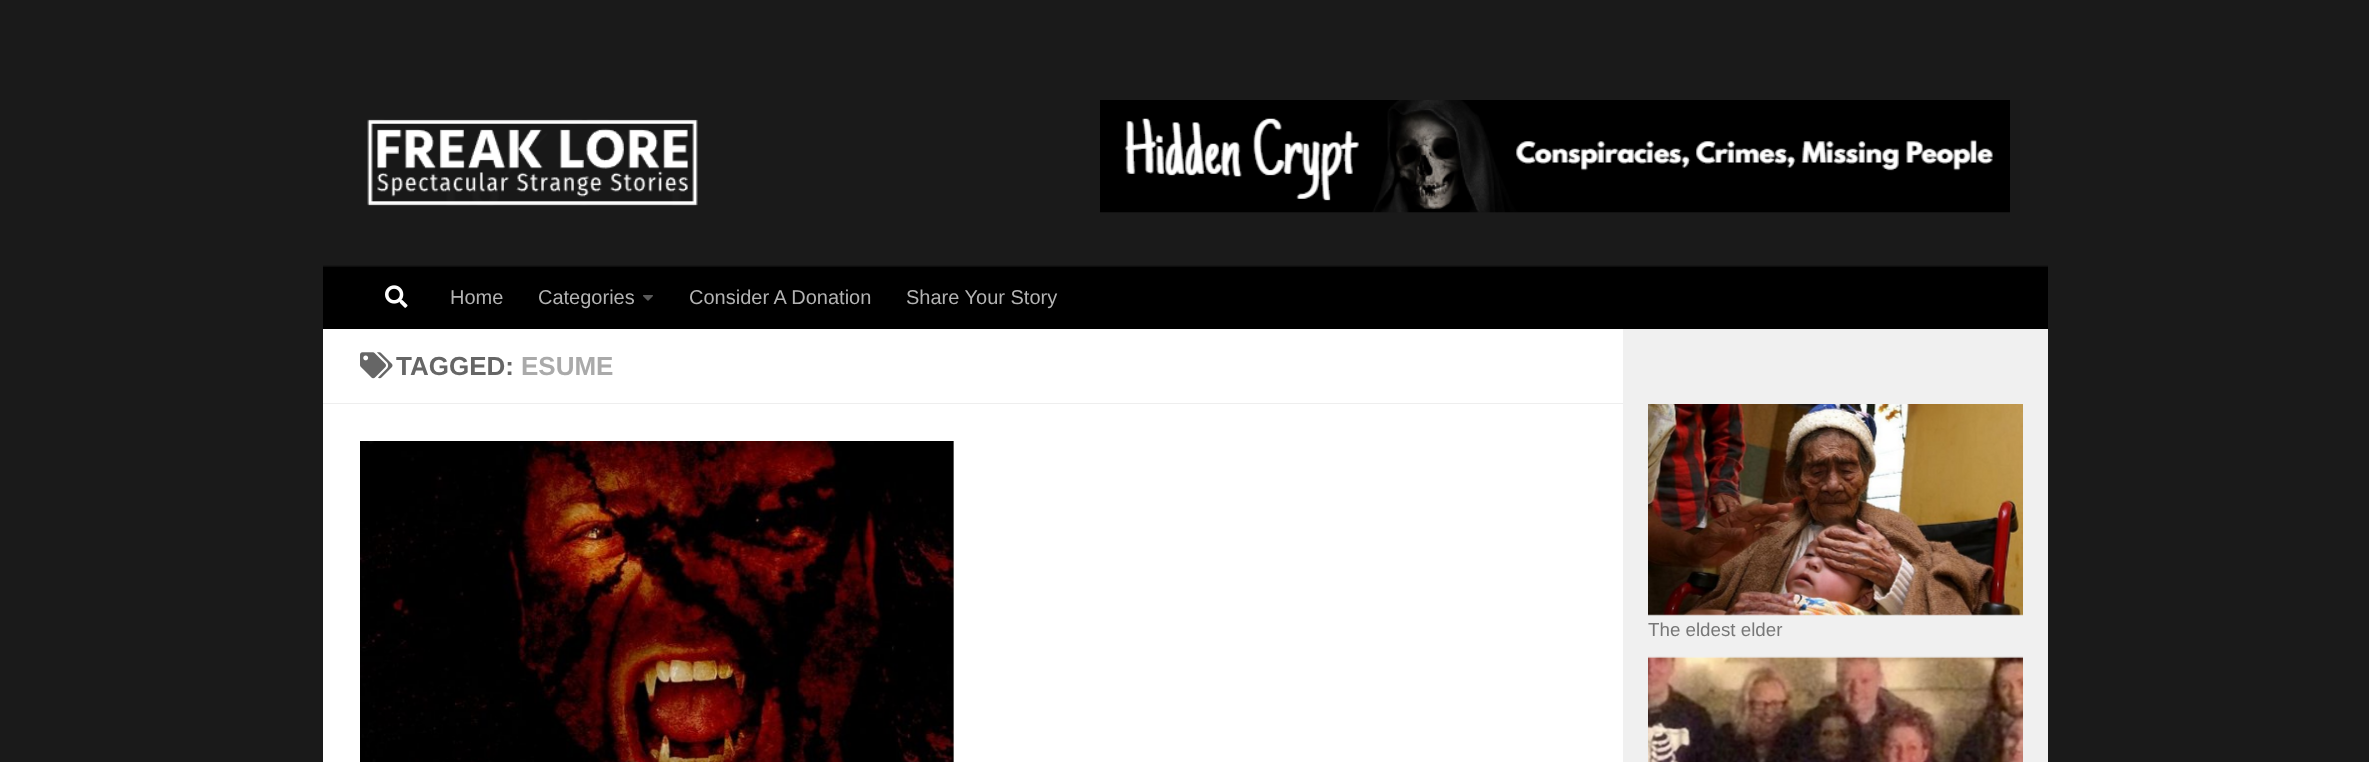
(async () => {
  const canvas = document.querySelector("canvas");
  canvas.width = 2369;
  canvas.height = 762;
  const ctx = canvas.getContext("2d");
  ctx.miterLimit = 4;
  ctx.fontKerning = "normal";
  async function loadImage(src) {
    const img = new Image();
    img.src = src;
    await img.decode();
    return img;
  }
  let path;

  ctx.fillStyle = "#1a1a1a";
  ctx.fillRect(0, 0, 2369, 762);
  ctx.drawImage(await loadImage("img/1.png"), 367, 119, 331, 87);
  ctx.drawImage(await loadImage("img/2.png"), 1100, 100, 910, 113);
  ctx.fillStyle = "#151515";
  path = new Path2D("M323 265V266H2048V328V265Z");
  ctx.fill(path);
  ctx.fillStyle = "#000000";
  ctx.fillRect(323, 267, 1725, 62);
  ctx.fillStyle = "#0d0d0d";
  ctx.fillRect(323, 266, 1725, 1);
  ctx.drawImage(await loadImage("img/3.png"), 385, 285, 23, 23);
  ctx.drawImage(await loadImage("img/4.png"), 643, 295, 10, 6);
  ctx.fillStyle = "#ffffff";
  ctx.fillRect(323, 329, 1300, 433);
  ctx.fillStyle = "#eeeeee";
  ctx.fillRect(323, 403, 1300, 1);
  ctx.drawImage(await loadImage("img/5.png"), 360, 352, 33, 27);
  ctx.drawImage(await loadImage("img/6.png"), 360, 441, 594, 321);
  ctx.fillStyle = "#f0f0f0";
  ctx.fillRect(1623, 329, 425, 433);
  ctx.drawImage(await loadImage("img/7.png"), 1648, 404, 375, 212);
  ctx.drawImage(await loadImage("img/8.png"), 1648, 656, 375, 106);
  ctx.font = "20px Liberation Sans";
  ctx.fillStyle = "#b3b3b3";
  for (const [text, x, y] of [
    ["Home", 450, 304],
    ["Categories", 538, 304],
    ["Consider A Donation", 689, 304],
    ["Share Your Story", 906, 304],
  ]) {
    ctx.fillText(text, x, y);
  }
  ctx.font = "bold 26px Liberation Sans";
  ctx.fillStyle = "#666666";
  ctx.fillText("TAGGED:", 396, 375);
  ctx.fillStyle = "#aaaaaa";
  ctx.fillText("ESUME", 521, 375);
  ctx.font = "18.75px Liberation Sans";
  ctx.fillStyle = "#777777";
  ctx.fillText("The eldest elder", 1648, 636);
})();
